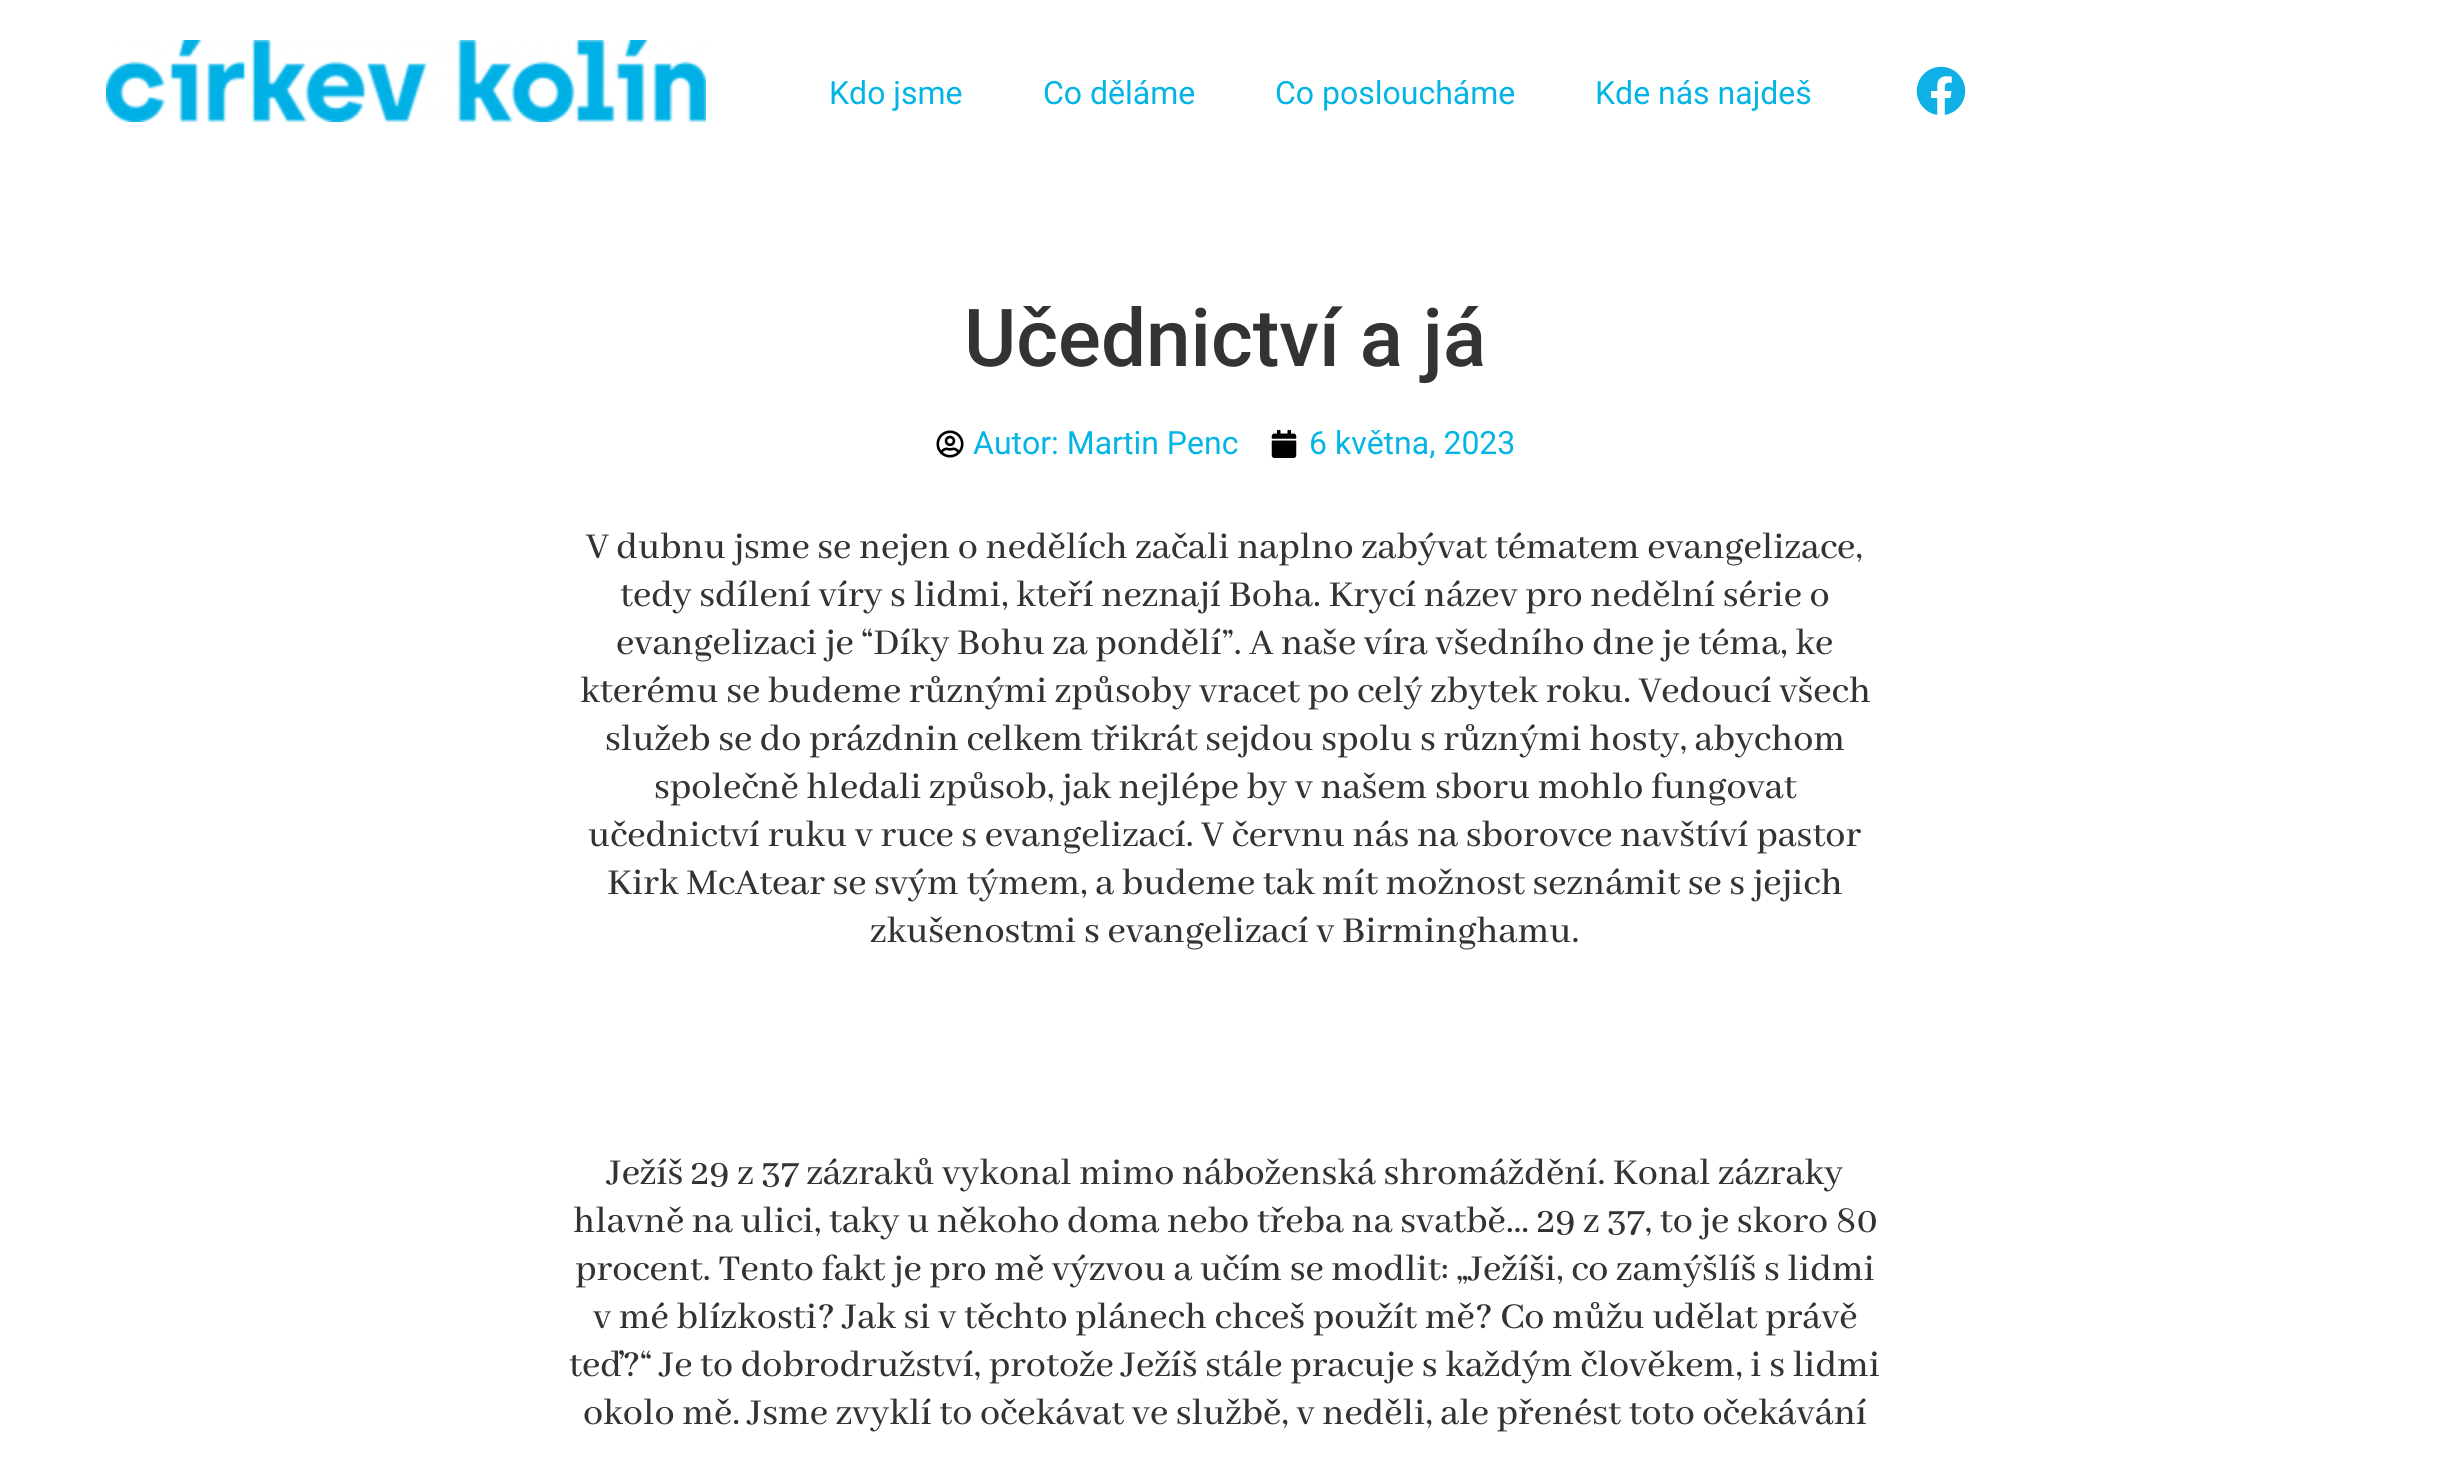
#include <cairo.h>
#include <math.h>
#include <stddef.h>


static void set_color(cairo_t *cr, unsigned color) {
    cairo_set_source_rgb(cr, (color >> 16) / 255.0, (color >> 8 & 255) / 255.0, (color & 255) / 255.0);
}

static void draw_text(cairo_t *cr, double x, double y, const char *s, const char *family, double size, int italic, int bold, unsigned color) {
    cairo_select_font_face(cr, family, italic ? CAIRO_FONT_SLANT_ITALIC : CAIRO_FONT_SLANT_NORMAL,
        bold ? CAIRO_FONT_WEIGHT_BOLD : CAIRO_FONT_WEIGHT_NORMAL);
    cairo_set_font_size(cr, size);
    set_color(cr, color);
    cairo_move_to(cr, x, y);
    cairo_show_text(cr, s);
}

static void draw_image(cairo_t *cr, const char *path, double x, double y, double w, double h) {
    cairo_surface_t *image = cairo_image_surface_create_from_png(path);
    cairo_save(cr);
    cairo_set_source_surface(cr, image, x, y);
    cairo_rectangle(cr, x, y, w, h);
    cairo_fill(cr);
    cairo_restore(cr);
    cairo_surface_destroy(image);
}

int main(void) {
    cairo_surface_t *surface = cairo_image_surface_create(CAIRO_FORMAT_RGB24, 2449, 1462);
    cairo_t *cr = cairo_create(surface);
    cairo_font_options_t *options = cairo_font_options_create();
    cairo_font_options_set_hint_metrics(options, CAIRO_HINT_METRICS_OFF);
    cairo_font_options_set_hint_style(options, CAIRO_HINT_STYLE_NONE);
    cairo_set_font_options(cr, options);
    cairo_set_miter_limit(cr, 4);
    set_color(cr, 0xFFFFFF);
    cairo_paint(cr);
    draw_image(cr, "assets/img1.png", 106, 40, 600, 82);
    draw_text(cr, 829, 104, "Kdo jsme", "Roboto", 32, 0, 0, 0x04B4E4);
    draw_text(cr, 1043, 104, "Co děláme", "Roboto", 32, 0, 0, 0x04B4E4);
    draw_text(cr, 1275, 104, "Co posloucháme", "Roboto", 32, 0, 0, 0x04B4E4);
    draw_text(cr, 1595, 104, "Kde nás najdeš", "Roboto", 32, 0, 0, 0x04B4E4);
    draw_image(cr, "assets/img2.png", 1916, 66, 50, 49);
    draw_text(cr, 964, 366, "Učednictví a já", "Roboto Medium", 80, 0, 0, 0x333333);
    draw_image(cr, "assets/img3.png", 936, 430, 28, 28);
    draw_text(cr, 973, 454, "Autor: Martin Penc", "Roboto", 32, 0, 0, 0x04B4E4);
    draw_image(cr, "assets/img4.png", 1271, 430, 26, 28);
    draw_text(cr, 1309, 454, "6 května, 2023", "Roboto", 32, 0, 0, 0x04B4E4);
    draw_text(cr, 586, 558, "V dubnu jsme se nejen o nedělích začali naplno zabývat tématem evangelizace,", "Abhaya Libre Medium Medium", 40, 0, 0, 0x333333);
    draw_text(cr, 620, 606, "tedy sdílení víry s lidmi, kteří neznají Boha. Krycí název pro nedělní série o", "Abhaya Libre Medium Medium", 40, 0, 0, 0x333333);
    draw_text(cr, 616, 654, "evangelizaci je “Díky Bohu za pondělí”. A naše víra všedního dne je téma, ke", "Abhaya Libre Medium Medium", 40, 0, 0, 0x333333);
    draw_text(cr, 580, 702, "kterému se budeme různými způsoby vracet po celý zbytek roku. Vedoucí všech", "Abhaya Libre Medium Medium", 40, 0, 0, 0x333333);
    draw_text(cr, 605, 750, "služeb se do prázdnin celkem třikrát sejdou spolu s různými hosty, abychom", "Abhaya Libre Medium Medium", 40, 0, 0, 0x333333);
    draw_text(cr, 654, 798, "společně hledali způsob, jak nejlépe by v našem sboru mohlo fungovat", "Abhaya Libre Medium Medium", 40, 0, 0, 0x333333);
    draw_text(cr, 588, 846, "učednictví ruku v ruce s evangelizací. V červnu nás na sborovce navštíví pastor", "Abhaya Libre Medium Medium", 40, 0, 0, 0x333333);
    draw_text(cr, 607, 894, "Kirk McAtear se svým týmem, a budeme tak mít možnost seznámit se s jejich", "Abhaya Libre Medium Medium", 40, 0, 0, 0x333333);
    draw_text(cr, 870, 942, "zkušenostmi s evangelizací v Birminghamu.", "Abhaya Libre Medium Medium", 40, 0, 0, 0x333333);
    draw_text(cr, 607, 1184, "Ježíš 29 z 37 zázraků vykonal mimo náboženská shromáždění. Konal zázraky", "Abhaya Libre Medium Medium", 40, 0, 0, 0x333333);
    draw_text(cr, 573, 1232, "hlavně na ulici, taky u někoho doma nebo třeba na svatbě… 29 z 37, to je skoro 80", "Abhaya Libre Medium Medium", 40, 0, 0, 0x333333);
    draw_text(cr, 575, 1280, "procent. Tento fakt je pro mě výzvou a učím se modlit: „Ježíši, co zamýšlíš s lidmi", "Abhaya Libre Medium Medium", 40, 0, 0, 0x333333);
    draw_text(cr, 593, 1328, "v mé blízkosti? Jak si v těchto plánech chceš použít mě? Co můžu udělat právě", "Abhaya Libre Medium Medium", 40, 0, 0, 0x333333);
    draw_text(cr, 569, 1376, "teď?“ Je to dobrodružství, protože Ježíš stále pracuje s každým člověkem, i s lidmi", "Abhaya Libre Medium Medium", 40, 0, 0, 0x333333);
    draw_text(cr, 583, 1424, "okolo mě. Jsme zvyklí to očekávat ve službě, v neděli, ale přenést toto očekávání", "Abhaya Libre Medium Medium", 40, 0, 0, 0x333333);
    cairo_surface_write_to_png(surface, "output.png");
    cairo_font_options_destroy(options);
    cairo_destroy(cr);
    cairo_surface_destroy(surface);
    return 0;
}
